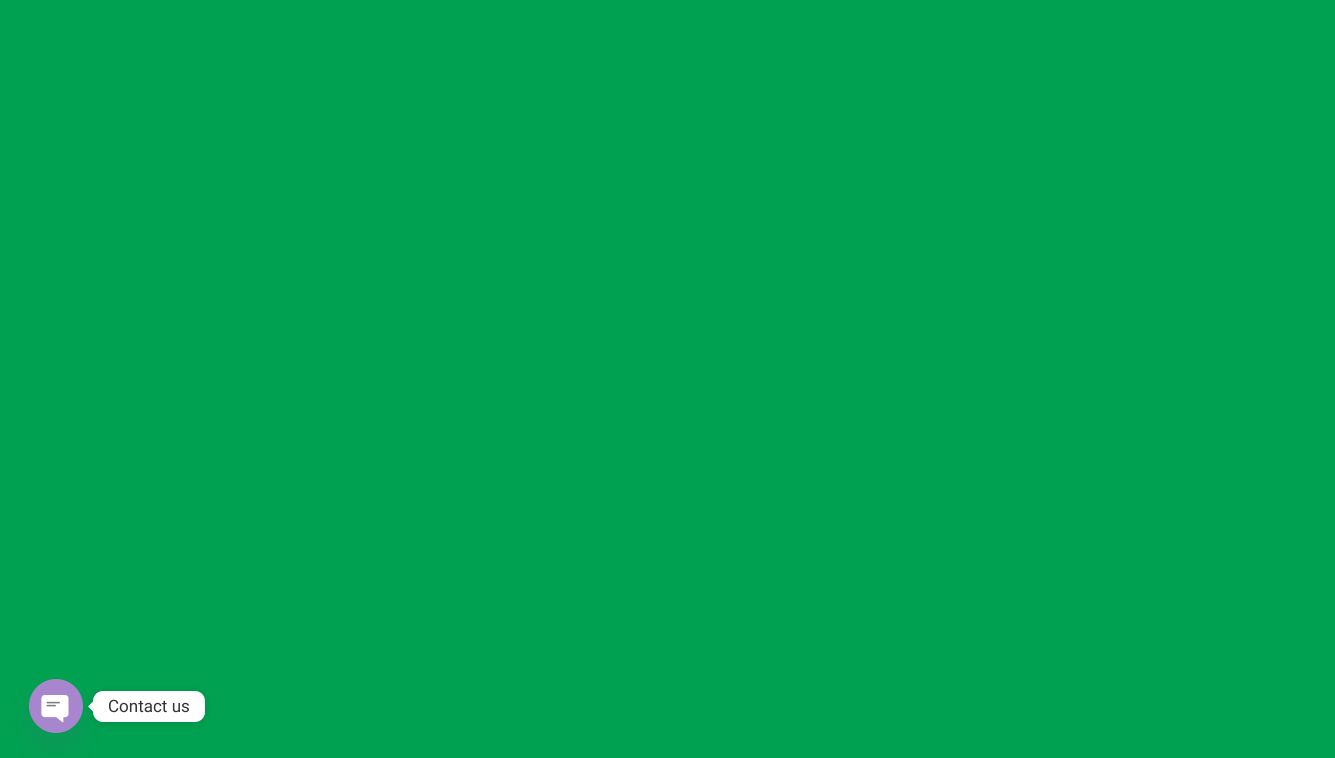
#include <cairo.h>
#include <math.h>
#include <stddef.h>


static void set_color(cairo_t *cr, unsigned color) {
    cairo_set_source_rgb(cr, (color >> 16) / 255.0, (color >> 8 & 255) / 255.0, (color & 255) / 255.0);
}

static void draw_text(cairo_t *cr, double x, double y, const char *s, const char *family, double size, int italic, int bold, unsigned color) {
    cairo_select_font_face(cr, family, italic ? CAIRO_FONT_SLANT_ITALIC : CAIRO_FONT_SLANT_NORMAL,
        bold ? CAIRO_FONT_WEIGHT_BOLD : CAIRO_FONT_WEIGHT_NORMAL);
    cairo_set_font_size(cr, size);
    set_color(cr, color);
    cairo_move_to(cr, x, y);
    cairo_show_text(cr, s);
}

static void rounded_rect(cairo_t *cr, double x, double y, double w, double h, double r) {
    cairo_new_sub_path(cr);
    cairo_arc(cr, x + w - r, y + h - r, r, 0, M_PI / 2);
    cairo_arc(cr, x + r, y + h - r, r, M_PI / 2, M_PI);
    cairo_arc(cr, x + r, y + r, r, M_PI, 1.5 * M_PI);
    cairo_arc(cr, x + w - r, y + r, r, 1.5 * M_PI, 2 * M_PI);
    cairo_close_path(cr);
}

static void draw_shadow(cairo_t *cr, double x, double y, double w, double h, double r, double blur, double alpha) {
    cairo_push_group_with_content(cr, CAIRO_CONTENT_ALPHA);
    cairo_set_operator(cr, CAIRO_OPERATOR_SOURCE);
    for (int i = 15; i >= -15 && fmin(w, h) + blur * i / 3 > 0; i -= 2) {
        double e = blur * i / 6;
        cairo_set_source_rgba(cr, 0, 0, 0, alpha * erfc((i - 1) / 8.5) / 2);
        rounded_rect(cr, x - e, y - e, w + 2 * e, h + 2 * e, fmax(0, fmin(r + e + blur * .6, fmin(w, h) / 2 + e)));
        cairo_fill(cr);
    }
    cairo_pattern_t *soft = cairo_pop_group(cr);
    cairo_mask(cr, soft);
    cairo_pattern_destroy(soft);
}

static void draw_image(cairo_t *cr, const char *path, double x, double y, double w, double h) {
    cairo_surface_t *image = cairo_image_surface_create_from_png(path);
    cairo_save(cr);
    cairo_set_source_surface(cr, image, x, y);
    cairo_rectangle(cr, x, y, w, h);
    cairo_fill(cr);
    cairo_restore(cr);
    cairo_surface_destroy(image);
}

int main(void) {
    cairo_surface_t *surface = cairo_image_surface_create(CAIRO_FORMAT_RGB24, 1335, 758);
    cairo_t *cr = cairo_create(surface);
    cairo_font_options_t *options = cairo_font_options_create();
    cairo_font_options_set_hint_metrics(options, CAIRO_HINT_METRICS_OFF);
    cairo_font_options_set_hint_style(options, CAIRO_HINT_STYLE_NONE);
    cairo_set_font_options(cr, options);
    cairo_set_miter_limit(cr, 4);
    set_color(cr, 0x00A151);
    cairo_paint(cr);
    set_color(cr, 0x000000);
    draw_shadow(cr, 93, 692, 112, 31, 10, 4, 0.15);
    set_color(cr, 0xFFFFFF);
    rounded_rect(cr, 93, 691, 112, 31, 10);
    cairo_fill(cr);
    cairo_new_path(cr);
    cairo_move_to(cr, 93, 701.5);
    cairo_line_to(cr, 93, 711.5);
    cairo_line_to(cr, 88, 706.5);
    cairo_close_path(cr);
    cairo_fill(cr);
    set_color(cr, 0x49687E);
    draw_shadow(cr, 29, 695, 54, 54, 27, 12, 0.16);
    draw_image(cr, "assets/img1.png", 29, 679, 54, 54);
    draw_text(cr, 108, 712, "Contact us", "Roboto", 17, 0, 0, 0x333333);
    cairo_surface_write_to_png(surface, "output.png");
    cairo_font_options_destroy(options);
    cairo_destroy(cr);
    cairo_surface_destroy(surface);
    return 0;
}
